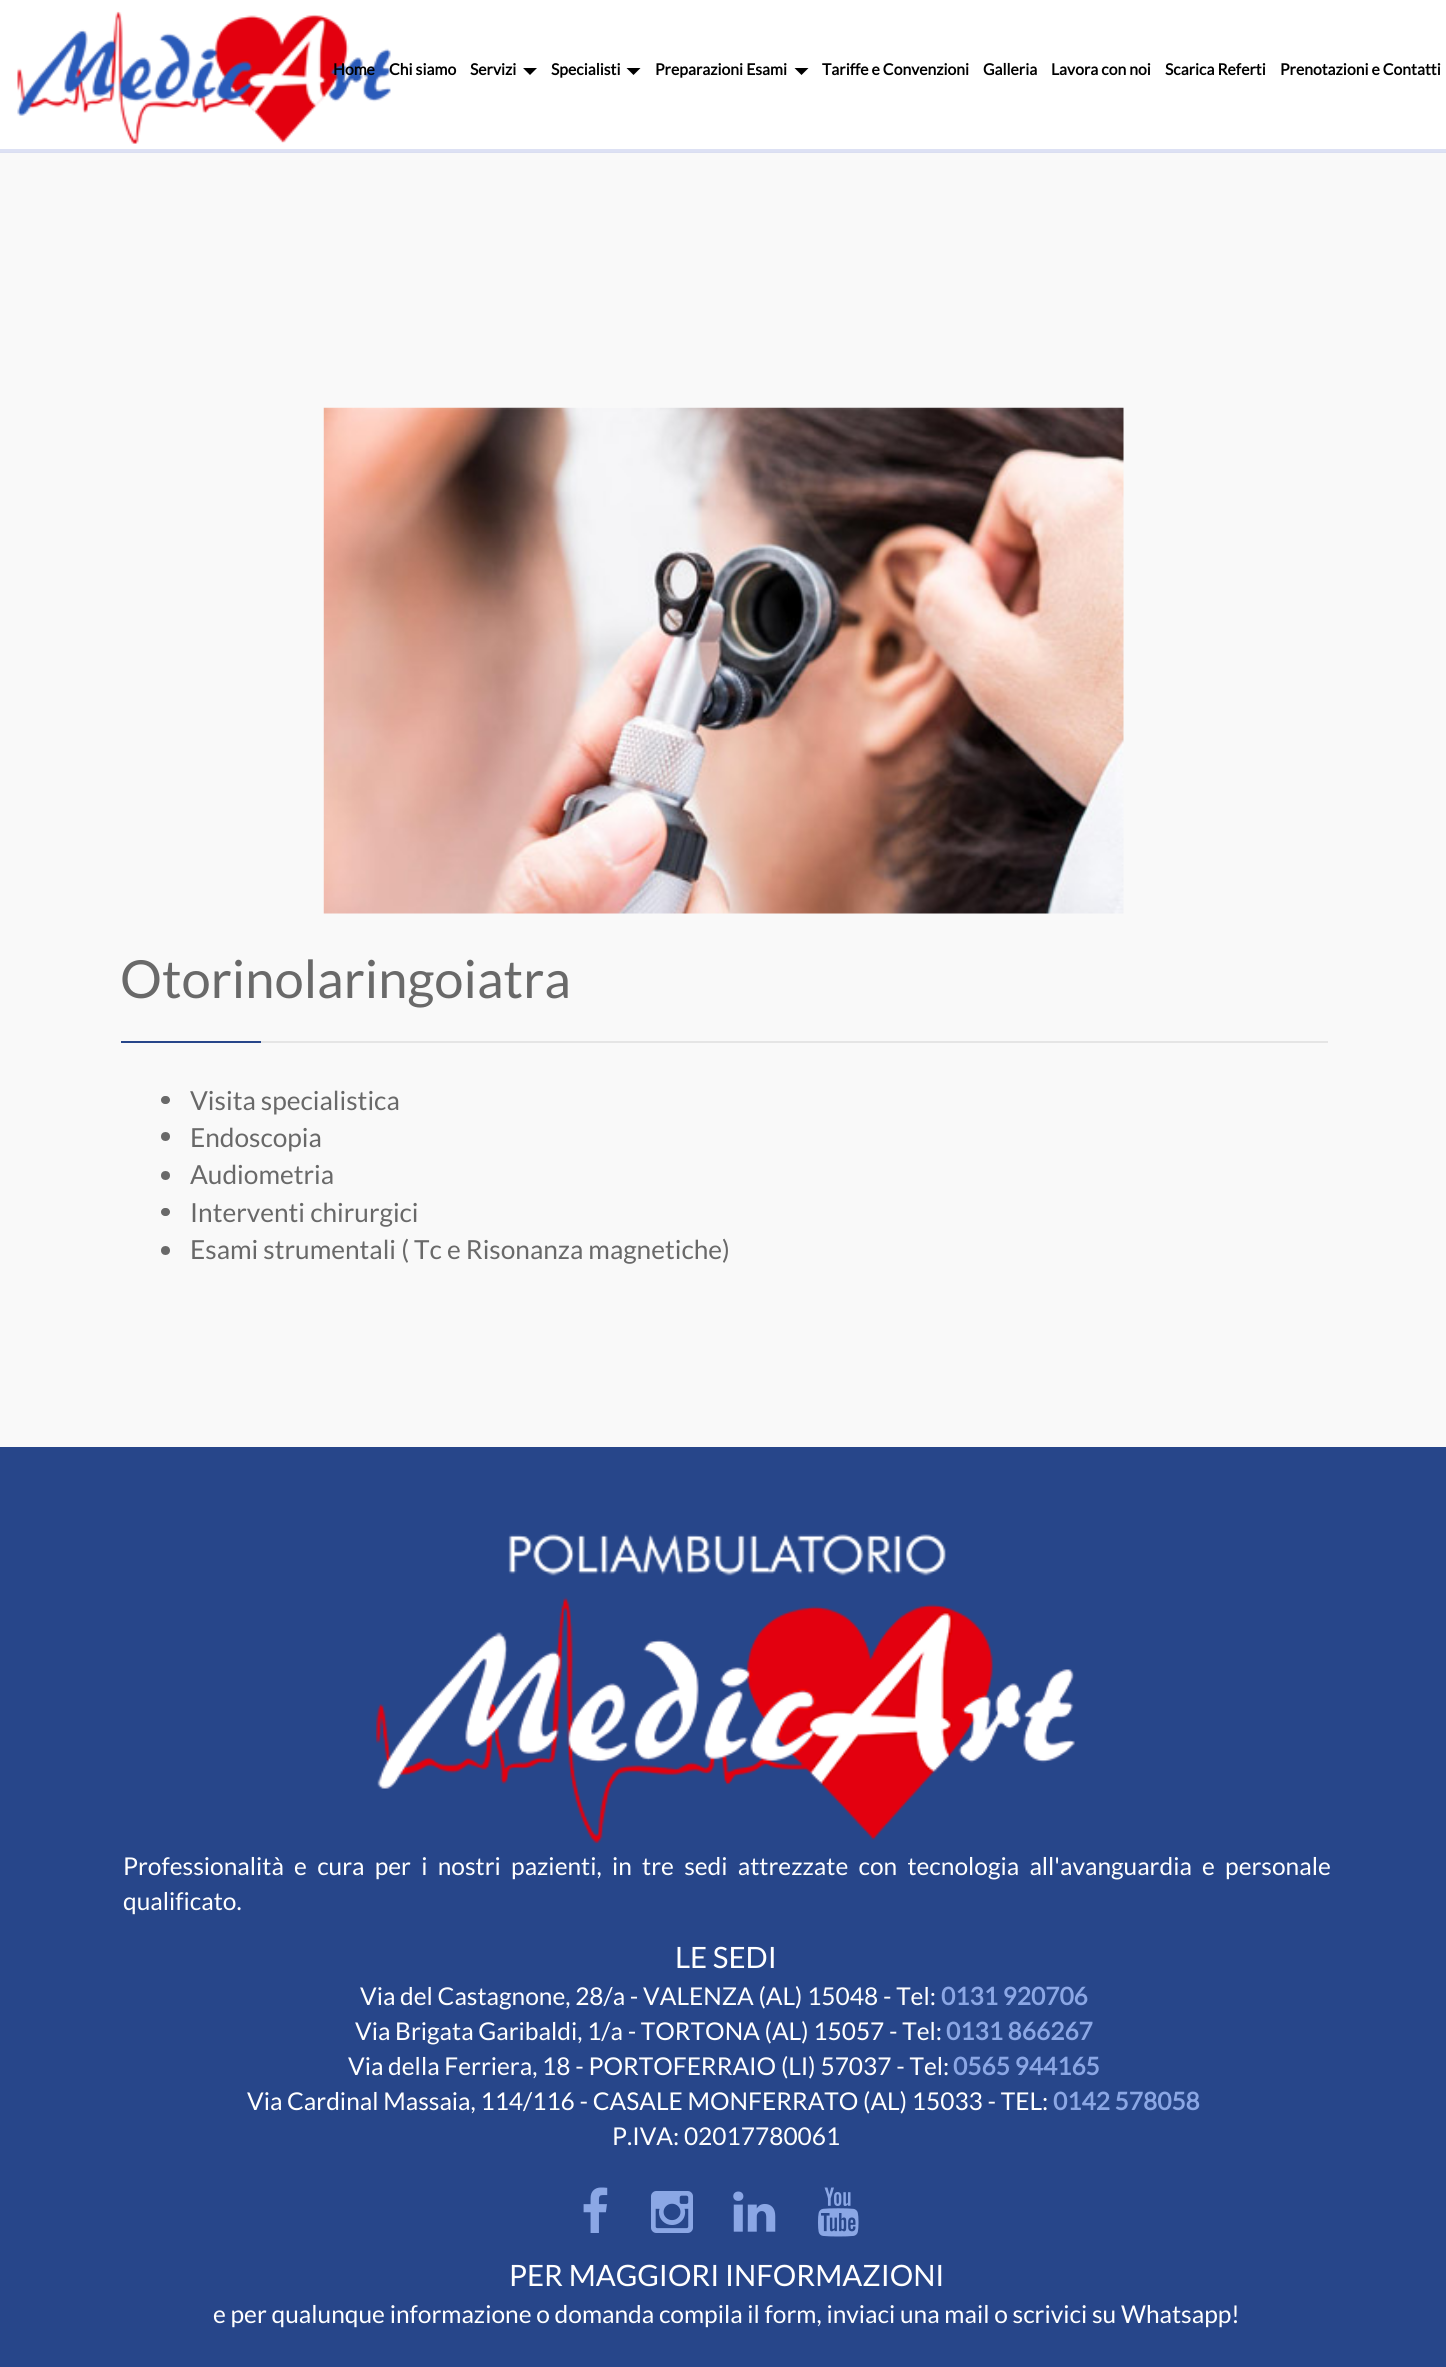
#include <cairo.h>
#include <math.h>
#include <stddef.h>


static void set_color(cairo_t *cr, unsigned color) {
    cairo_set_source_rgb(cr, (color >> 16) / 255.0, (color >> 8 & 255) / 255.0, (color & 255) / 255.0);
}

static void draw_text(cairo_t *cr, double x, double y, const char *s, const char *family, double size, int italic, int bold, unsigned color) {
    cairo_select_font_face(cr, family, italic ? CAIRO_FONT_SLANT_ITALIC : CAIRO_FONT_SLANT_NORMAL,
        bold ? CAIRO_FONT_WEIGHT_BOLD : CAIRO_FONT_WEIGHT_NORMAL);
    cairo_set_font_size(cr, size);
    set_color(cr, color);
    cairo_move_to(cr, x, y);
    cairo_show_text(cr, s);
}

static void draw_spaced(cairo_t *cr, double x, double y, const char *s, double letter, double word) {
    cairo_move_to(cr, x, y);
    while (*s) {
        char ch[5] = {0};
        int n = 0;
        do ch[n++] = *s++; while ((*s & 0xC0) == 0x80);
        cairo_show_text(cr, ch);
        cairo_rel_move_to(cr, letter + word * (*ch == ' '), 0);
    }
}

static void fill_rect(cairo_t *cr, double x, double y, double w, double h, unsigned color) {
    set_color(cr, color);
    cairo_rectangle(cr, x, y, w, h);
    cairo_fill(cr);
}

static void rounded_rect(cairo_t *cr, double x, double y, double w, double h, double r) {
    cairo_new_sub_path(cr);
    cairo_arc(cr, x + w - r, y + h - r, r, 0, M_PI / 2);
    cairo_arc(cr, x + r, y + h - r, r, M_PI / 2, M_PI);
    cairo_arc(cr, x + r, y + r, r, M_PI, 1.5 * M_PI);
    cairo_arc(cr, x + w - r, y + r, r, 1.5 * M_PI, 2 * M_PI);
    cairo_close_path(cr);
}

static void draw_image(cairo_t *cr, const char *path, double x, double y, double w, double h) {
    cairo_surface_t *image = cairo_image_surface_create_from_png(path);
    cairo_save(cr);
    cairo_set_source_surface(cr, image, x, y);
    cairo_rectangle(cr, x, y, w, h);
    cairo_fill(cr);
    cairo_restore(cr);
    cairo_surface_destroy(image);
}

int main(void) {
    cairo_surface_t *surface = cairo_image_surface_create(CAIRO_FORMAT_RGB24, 1446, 2367);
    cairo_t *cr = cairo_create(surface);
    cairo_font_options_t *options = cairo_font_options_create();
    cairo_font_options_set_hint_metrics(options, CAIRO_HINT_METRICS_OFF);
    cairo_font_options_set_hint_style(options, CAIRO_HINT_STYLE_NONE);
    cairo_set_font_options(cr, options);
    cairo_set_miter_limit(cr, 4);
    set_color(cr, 0xF9F9F9);
    cairo_paint(cr);
    fill_rect(cr, 0, 152, 1446, 1, 0xDADEF1);
    fill_rect(cr, 0, 0, 1446, 149, 0xFFFFFF);
    fill_rect(cr, 0, 149, 1446, 3, 0xDDE1F4);
    draw_image(cr, "assets/img1.png", 17, 11, 374, 133);
    draw_text(cr, 333, 75, "Home", "Lato", 15.75, 0, 1, 0x000000);
    draw_text(cr, 389, 75, "Chi siamo", "Lato", 15.75, 0, 1, 0x000000);
    draw_text(cr, 470, 75, "Servizi", "Lato", 15.75, 0, 1, 0x000000);
    cairo_new_path(cr);
    cairo_move_to(cr, 523, 68);
    cairo_line_to(cr, 537, 68);
    cairo_line_to(cr, 530, 75);
    cairo_close_path(cr);
    cairo_fill(cr);
    draw_text(cr, 551, 75, "Specialisti", "Lato", 15.75, 0, 1, 0x000000);
    cairo_new_path(cr);
    cairo_move_to(cr, 626.5, 68);
    cairo_line_to(cr, 640.5, 68);
    cairo_line_to(cr, 633.5, 75);
    cairo_close_path(cr);
    cairo_fill(cr);
    draw_text(cr, 655, 75, "Preparazioni Esami", "Lato", 15.75, 0, 1, 0x000000);
    cairo_new_path(cr);
    cairo_move_to(cr, 794.5, 68);
    cairo_line_to(cr, 808.5, 68);
    cairo_line_to(cr, 801.5, 75);
    cairo_close_path(cr);
    cairo_fill(cr);
    draw_text(cr, 822, 75, "Tariffe e Convenzioni", "Lato", 15.75, 0, 1, 0x000000);
    draw_text(cr, 983, 75, "Galleria", "Lato", 15.75, 0, 1, 0x000000);
    draw_text(cr, 1051, 75, "Lavora con noi", "Lato", 15.75, 0, 1, 0x000000);
    draw_text(cr, 1165, 75, "Scarica Referti", "Lato", 15.75, 0, 1, 0x000000);
    draw_text(cr, 1280, 75, "Prenotazioni e Contatti", "Lato", 15.75, 0, 1, 0x000000);
    draw_image(cr, "assets/img2.png", 323, 407, 801, 507);
    draw_text(cr, 120, 998, "Otorinolaringoiatra", "Lato", 52.5, 0, 0, 0x696969);
    fill_rect(cr, 261, 1041, 1067, 2, 0xE5E5E5);
    fill_rect(cr, 121, 1041, 140, 2, 0x27468A);
    set_color(cr, 0x696969);
    rounded_rect(cr, 161, 1096, 9, 8, 4);
    cairo_fill(cr);
    draw_text(cr, 190, 1110, "Visita specialistica", "Lato", 26.25, 0, 0, 0x696969);
    cairo_new_path(cr);
    cairo_arc(cr, 165.5, 1136.5, 4.5, 0, 2 * M_PI);
    cairo_fill(cr);
    draw_text(cr, 190, 1147, "Endoscopia", "Lato", 26.25, 0, 0, 0x696969);
    cairo_new_path(cr);
    cairo_arc(cr, 165.5, 1175.5, 4.5, 0, 2 * M_PI);
    cairo_fill(cr);
    draw_text(cr, 190, 1184, "Audiometria", "Lato", 26.25, 0, 0, 0x696969);
    rounded_rect(cr, 161, 1208, 9, 8, 4);
    cairo_fill(cr);
    draw_text(cr, 190, 1222, "Interventi chirurgici", "Lato", 26.25, 0, 0, 0x696969);
    cairo_new_path(cr);
    cairo_arc(cr, 165.5, 1250.5, 4.5, 0, 2 * M_PI);
    cairo_fill(cr);
    draw_text(cr, 190, 1259, "Esami strumentali ( Tc e Risonanza magnetiche)", "Lato", 26.25, 0, 0, 0x696969);
    fill_rect(cr, 0, 1447, 1446, 920, 0x27468A);
    draw_image(cr, "assets/img3.png", 376, 1534, 699, 310);
    cairo_set_font_size(cr, 24.5);
    set_color(cr, 0xFFFFFF);
    draw_spaced(cr, 123, 1875, "Professionalità e cura per i nostri pazienti, in tre sedi attrezzate con tecnologia all'avanguardia e personale", 0, 5.5);
    draw_text(cr, 123, 1910, "qualificato.", "Lato", 24.5, 0, 0, 0xFFFFFF);
    draw_text(cr, 675, 1968, "LE SEDI", "Lato", 29.4, 0, 0, 0xFFFFFF);
    draw_text(cr, 360, 2005, "Via del Castagnone, 28/a - VALENZA (AL) 15048 - Tel:", "Lato", 24.5, 0, 0, 0xFFFFFF);
    draw_text(cr, 941, 2005, "0131 920706", "Lato", 24.5, 0, 1, 0x8BA7E5);
    draw_text(cr, 355, 2040, "Via Brigata Garibaldi, 1/a - TORTONA (AL) 15057 - Tel:", "Lato", 24.5, 0, 0, 0xFFFFFF);
    draw_text(cr, 946, 2040, "0131 866267", "Lato", 24.5, 0, 1, 0x8BA7E5);
    draw_text(cr, 348, 2075, "Via della Ferriera, 18 - PORTOFERRAIO (LI) 57037 - Tel:", "Lato", 24.5, 0, 0, 0xFFFFFF);
    draw_text(cr, 953, 2075, "0565 944165", "Lato", 24.5, 0, 1, 0x8BA7E5);
    draw_text(cr, 247, 2110, "Via Cardinal Massaia, 114/116 - CASALE MONFERRATO (AL) 15033 - TEL:", "Lato", 24.5, 0, 0, 0xFFFFFF);
    draw_text(cr, 1053, 2110, "0142 578058", "Lato", 24.5, 0, 1, 0x8BA7E5);
    draw_text(cr, 612, 2145, "P.IVA: 02017780061", "Lato", 24.5, 0, 0, 0xFFFFFF);
    draw_image(cr, "assets/img4.png", 583, 2187, 25, 46);
    draw_image(cr, "assets/img5.png", 651, 2191, 42, 42);
    draw_image(cr, "assets/img6.png", 733, 2191, 43, 41);
    draw_image(cr, "assets/img7.png", 818, 2187, 41, 50);
    draw_text(cr, 509, 2286, "PER MAGGIORI INFORMAZIONI", "Lato", 29.4, 0, 0, 0xFFFFFF);
    draw_text(cr, 213, 2323, "e per qualunque informazione o domanda compila il form, inviaci una mail o scrivici su Whatsapp!", "Lato", 24.5, 0, 0, 0xFFFFFF);
    cairo_surface_write_to_png(surface, "output.png");
    cairo_font_options_destroy(options);
    cairo_destroy(cr);
    cairo_surface_destroy(surface);
    return 0;
}
